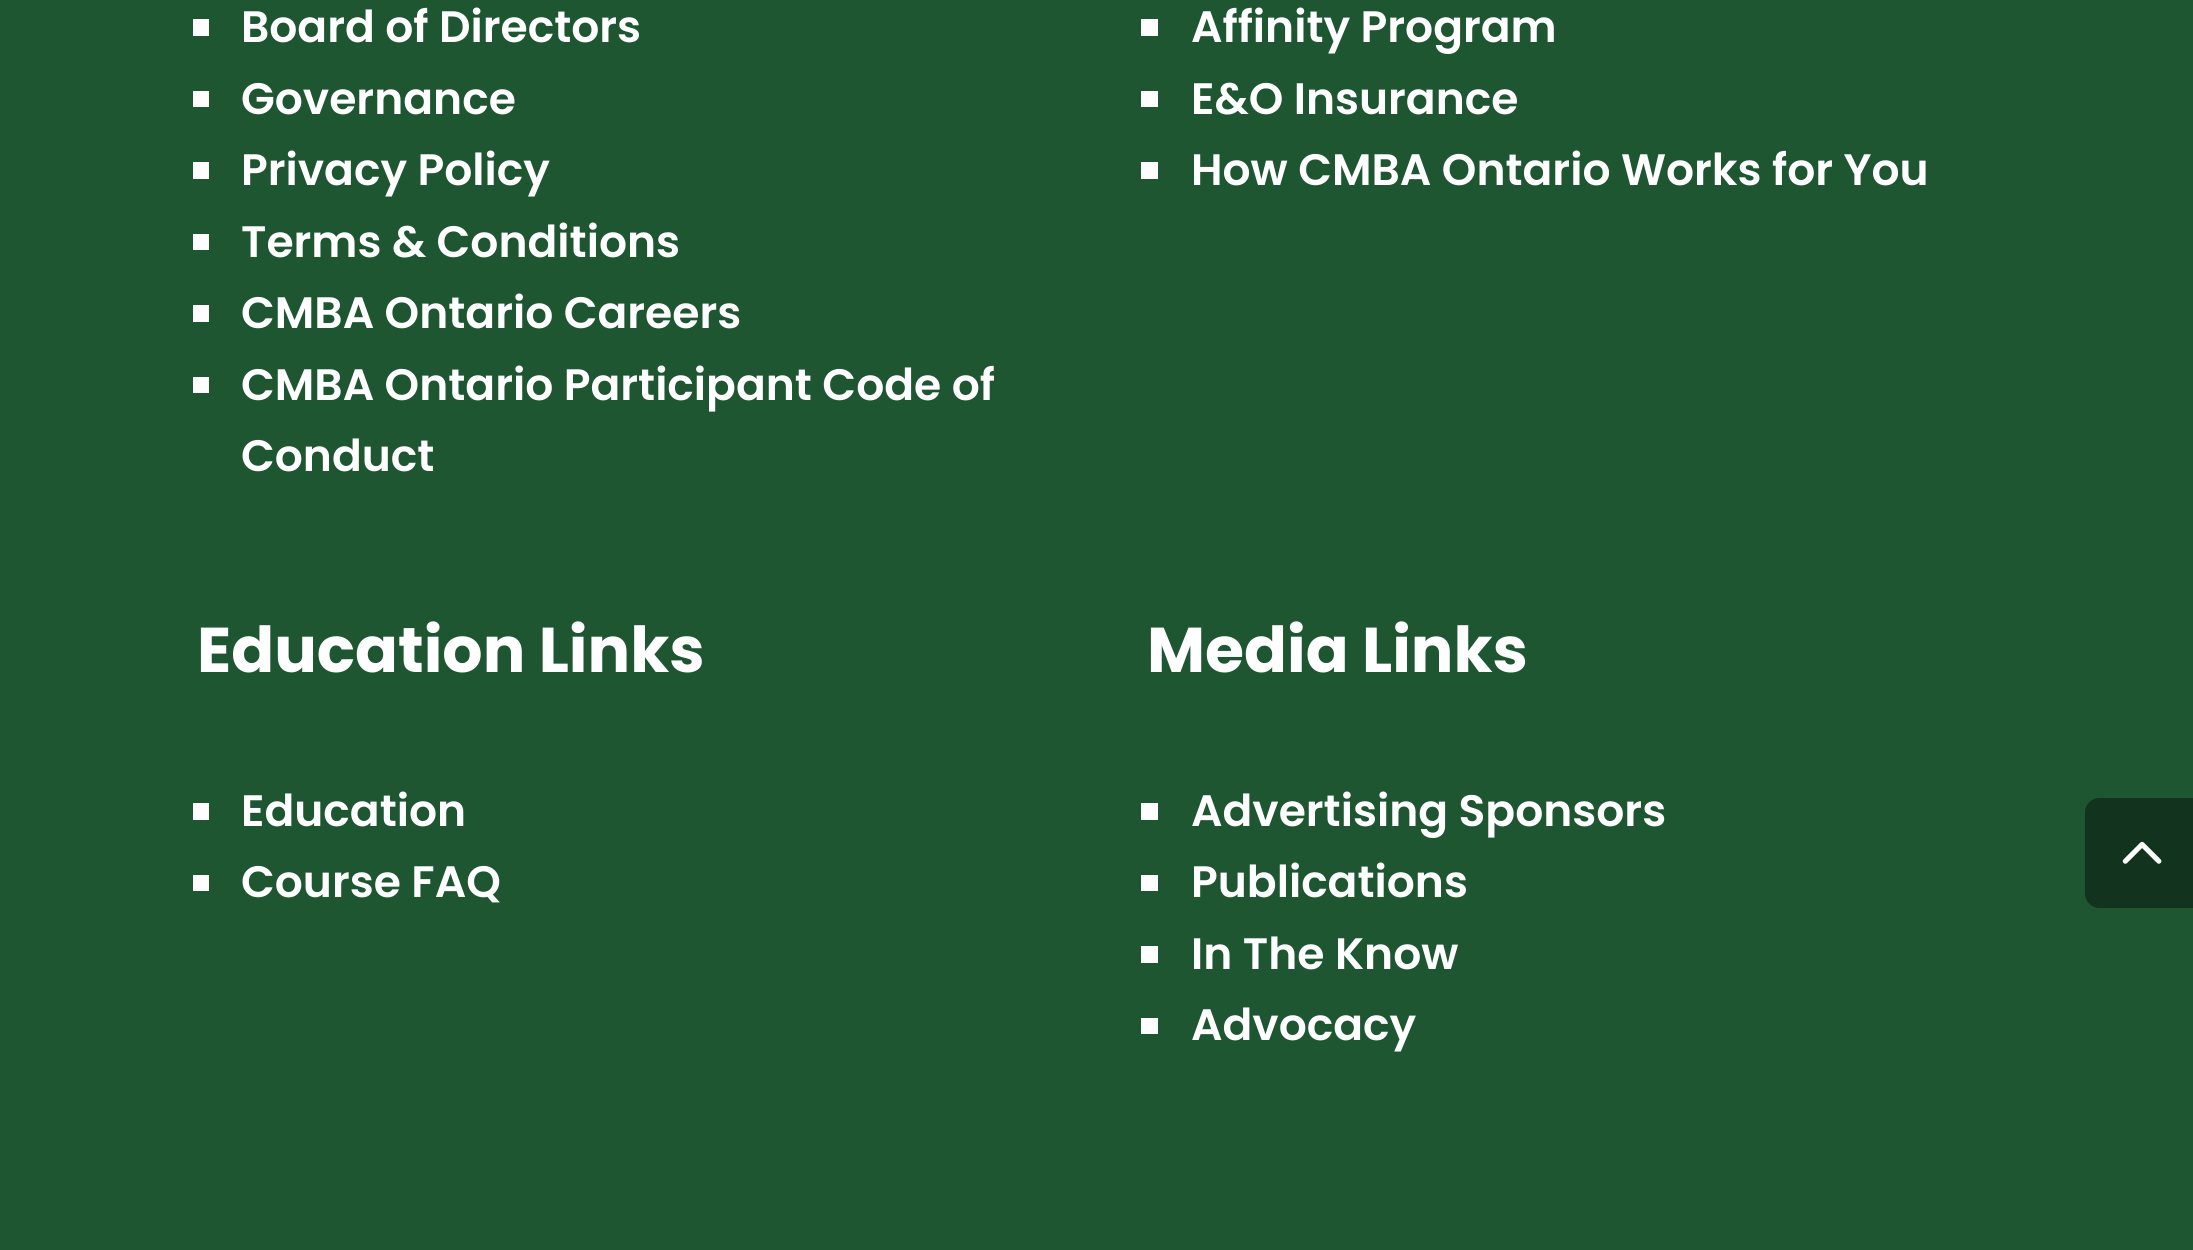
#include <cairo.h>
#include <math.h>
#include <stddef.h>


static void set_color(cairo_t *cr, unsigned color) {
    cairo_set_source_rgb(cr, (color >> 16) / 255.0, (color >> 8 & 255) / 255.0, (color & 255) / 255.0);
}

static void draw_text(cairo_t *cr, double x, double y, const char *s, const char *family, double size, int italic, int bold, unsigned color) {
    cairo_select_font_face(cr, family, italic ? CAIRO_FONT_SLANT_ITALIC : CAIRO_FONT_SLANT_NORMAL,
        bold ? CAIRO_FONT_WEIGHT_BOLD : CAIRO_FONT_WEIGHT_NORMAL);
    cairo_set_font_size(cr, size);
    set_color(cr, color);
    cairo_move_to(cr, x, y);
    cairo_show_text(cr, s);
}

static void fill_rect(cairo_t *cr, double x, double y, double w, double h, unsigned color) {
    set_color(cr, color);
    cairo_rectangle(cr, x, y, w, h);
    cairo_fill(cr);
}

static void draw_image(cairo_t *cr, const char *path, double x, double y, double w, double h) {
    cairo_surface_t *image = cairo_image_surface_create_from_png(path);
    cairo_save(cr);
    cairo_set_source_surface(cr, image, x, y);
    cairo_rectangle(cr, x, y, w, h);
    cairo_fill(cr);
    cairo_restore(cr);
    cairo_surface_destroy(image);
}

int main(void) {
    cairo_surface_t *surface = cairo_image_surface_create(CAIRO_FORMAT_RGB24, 2193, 1250);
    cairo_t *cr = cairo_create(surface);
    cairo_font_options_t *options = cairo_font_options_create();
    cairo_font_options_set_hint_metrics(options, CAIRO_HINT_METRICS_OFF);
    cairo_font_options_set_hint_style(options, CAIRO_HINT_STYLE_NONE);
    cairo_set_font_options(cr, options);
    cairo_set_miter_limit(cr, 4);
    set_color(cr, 0x1E5632);
    cairo_paint(cr);
    fill_rect(cr, 193, 19, 16, 17, 0xFFFFFF);
    draw_text(cr, 241, 42, "Board of Directors", "Poppins SemiBold", 44, 0, 0, 0xFFFFFF);
    fill_rect(cr, 193, 91, 16, 16, 0xFFFFFF);
    draw_text(cr, 241, 114, "Governance", "Poppins SemiBold", 44, 0, 0, 0xFFFFFF);
    fill_rect(cr, 193, 162, 16, 17, 0xFFFFFF);
    draw_text(cr, 241, 185, "Privacy Policy", "Poppins SemiBold", 44, 0, 0, 0xFFFFFF);
    fill_rect(cr, 193, 234, 16, 16, 0xFFFFFF);
    draw_text(cr, 241, 257, "Terms & Conditions", "Poppins SemiBold", 44, 0, 0, 0xFFFFFF);
    fill_rect(cr, 193, 305, 16, 17, 0xFFFFFF);
    draw_text(cr, 241, 328, "CMBA Ontario Careers", "Poppins SemiBold", 44, 0, 0, 0xFFFFFF);
    fill_rect(cr, 193, 377, 16, 16, 0xFFFFFF);
    draw_text(cr, 241, 400, "CMBA Ontario Participant Code of", "Poppins SemiBold", 44, 0, 0, 0xFFFFFF);
    draw_text(cr, 241, 471, "Conduct", "Poppins SemiBold", 44, 0, 0, 0xFFFFFF);
    fill_rect(cr, 1141, 19, 17, 17, 0xFFFFFF);
    draw_text(cr, 1191, 42, "Affinity Program", "Poppins SemiBold", 44, 0, 0, 0xFFFFFF);
    fill_rect(cr, 1141, 91, 17, 16, 0xFFFFFF);
    draw_text(cr, 1191, 114, "E&O Insurance", "Poppins SemiBold", 44, 0, 0, 0xFFFFFF);
    fill_rect(cr, 1141, 162, 17, 17, 0xFFFFFF);
    draw_text(cr, 1191, 185, "How CMBA Ontario Works for You", "Poppins SemiBold", 44, 0, 0, 0xFFFFFF);
    draw_text(cr, 197, 672, "Education Links", "Poppins", 63.25, 0, 1, 0xFFFFFF);
    fill_rect(cr, 193, 803, 16, 17, 0xFFFFFF);
    draw_text(cr, 241, 826, "Education", "Poppins SemiBold", 44, 0, 0, 0xFFFFFF);
    fill_rect(cr, 193, 875, 16, 16, 0xFFFFFF);
    draw_text(cr, 241, 897, "Course FAQ", "Poppins SemiBold", 44, 0, 0, 0xFFFFFF);
    draw_text(cr, 1147, 672, "Media Links", "Poppins", 63.25, 0, 1, 0xFFFFFF);
    fill_rect(cr, 1141, 803, 17, 17, 0xFFFFFF);
    draw_text(cr, 1191, 826, "Advertising Sponsors", "Poppins SemiBold", 44, 0, 0, 0xFFFFFF);
    fill_rect(cr, 1141, 875, 17, 16, 0xFFFFFF);
    draw_text(cr, 1191, 897, "Publications", "Poppins SemiBold", 44, 0, 0, 0xFFFFFF);
    fill_rect(cr, 1141, 946, 17, 17, 0xFFFFFF);
    draw_text(cr, 1191, 969, "In The Know", "Poppins SemiBold", 44, 0, 0, 0xFFFFFF);
    fill_rect(cr, 1141, 1018, 17, 16, 0xFFFFFF);
    draw_text(cr, 1191, 1040, "Advocacy", "Poppins SemiBold", 44, 0, 0, 0xFFFFFF);
    set_color(cr, 0x12341E);
    cairo_new_path(cr);
    cairo_move_to(cr, 2099, 798);
    cairo_line_to(cr, 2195, 798);
    cairo_line_to(cr, 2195, 908);
    cairo_line_to(cr, 2099, 908);
    cairo_curve_to(cr, 2091.5, 908, 2085, 901.5, 2085, 894);
    cairo_line_to(cr, 2085, 812);
    cairo_curve_to(cr, 2085, 804.5, 2091.5, 798, 2099, 798);
    cairo_close_path(cr);
    cairo_fill(cr);
    draw_image(cr, "assets/img1.png", 2122, 841, 40, 23);
    cairo_surface_write_to_png(surface, "output.png");
    cairo_font_options_destroy(options);
    cairo_destroy(cr);
    cairo_surface_destroy(surface);
    return 0;
}
